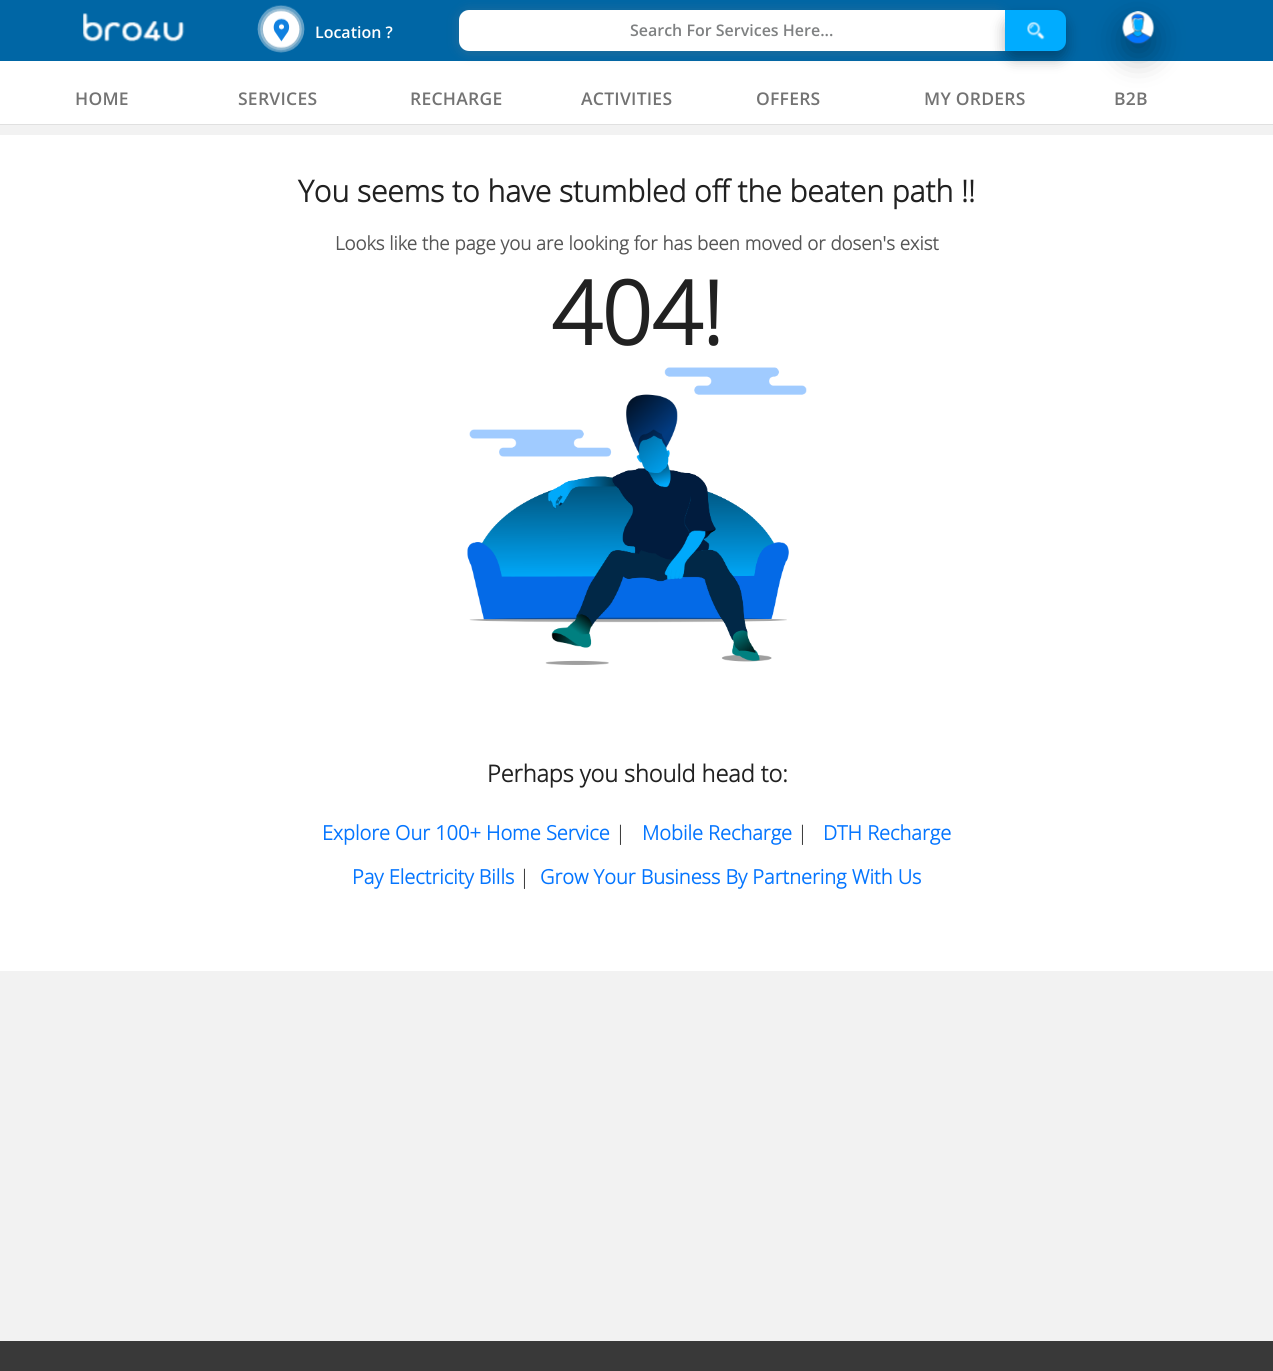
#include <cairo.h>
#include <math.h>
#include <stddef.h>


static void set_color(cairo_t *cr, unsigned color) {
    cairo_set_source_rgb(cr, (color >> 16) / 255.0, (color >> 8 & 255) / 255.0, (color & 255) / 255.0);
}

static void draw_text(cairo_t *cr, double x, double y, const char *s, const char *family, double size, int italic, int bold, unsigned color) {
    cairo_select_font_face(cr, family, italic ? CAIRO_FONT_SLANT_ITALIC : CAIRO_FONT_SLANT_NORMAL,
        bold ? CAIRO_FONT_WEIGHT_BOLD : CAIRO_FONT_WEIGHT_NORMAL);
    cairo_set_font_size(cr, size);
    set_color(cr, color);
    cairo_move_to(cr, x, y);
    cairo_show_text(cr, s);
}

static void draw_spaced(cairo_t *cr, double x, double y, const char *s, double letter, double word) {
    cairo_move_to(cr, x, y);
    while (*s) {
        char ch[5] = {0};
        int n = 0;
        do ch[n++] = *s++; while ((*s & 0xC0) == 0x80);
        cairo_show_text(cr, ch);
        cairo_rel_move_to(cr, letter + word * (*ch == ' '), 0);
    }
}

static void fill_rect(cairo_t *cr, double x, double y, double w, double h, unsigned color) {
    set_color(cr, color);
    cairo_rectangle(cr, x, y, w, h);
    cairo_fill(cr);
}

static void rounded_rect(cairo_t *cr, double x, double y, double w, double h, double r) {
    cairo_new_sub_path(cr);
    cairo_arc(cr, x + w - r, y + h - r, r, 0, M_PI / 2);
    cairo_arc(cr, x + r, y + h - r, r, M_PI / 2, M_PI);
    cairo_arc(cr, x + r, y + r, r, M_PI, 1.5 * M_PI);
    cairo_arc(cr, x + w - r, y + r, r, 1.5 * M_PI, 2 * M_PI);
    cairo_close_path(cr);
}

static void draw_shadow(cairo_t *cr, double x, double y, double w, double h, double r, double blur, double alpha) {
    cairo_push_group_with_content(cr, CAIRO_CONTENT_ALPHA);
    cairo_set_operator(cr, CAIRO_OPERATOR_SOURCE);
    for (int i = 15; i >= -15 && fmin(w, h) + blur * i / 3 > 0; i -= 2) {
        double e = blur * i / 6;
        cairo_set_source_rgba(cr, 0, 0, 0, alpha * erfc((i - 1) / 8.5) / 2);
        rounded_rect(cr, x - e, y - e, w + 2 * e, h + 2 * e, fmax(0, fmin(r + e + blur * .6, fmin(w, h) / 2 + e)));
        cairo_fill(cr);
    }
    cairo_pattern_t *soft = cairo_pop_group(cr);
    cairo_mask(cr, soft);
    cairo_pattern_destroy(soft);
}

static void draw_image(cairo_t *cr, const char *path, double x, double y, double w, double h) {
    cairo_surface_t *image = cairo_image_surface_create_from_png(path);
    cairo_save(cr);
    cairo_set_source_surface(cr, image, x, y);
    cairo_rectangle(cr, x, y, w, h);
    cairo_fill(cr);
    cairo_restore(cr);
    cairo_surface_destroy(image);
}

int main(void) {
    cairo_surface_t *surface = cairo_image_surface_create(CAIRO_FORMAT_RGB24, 1273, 1371);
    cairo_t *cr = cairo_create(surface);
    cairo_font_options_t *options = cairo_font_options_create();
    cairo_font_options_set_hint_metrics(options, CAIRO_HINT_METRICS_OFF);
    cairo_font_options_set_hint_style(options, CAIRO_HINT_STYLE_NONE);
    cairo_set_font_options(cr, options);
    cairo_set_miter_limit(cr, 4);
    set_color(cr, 0xF2F2F2);
    cairo_paint(cr);
    fill_rect(cr, 0, 0, 1273, 61, 0x0066A5);
    draw_image(cr, "assets/img1.png", 83, 13, 102, 29);
    draw_image(cr, "assets/img2.png", 257, 5, 48, 48);
    draw_text(cr, 315, 38, "Location ?", "Open Sans SemiBold", 16, 0, 0, 0xFFFFFF);
    fill_rect(cr, 0, 61, 1273, 63, 0xFFFFFF);
    set_color(cr, 0x7B7B7B);
    draw_shadow(cr, 459, 11, 546, 42, 10, 6, 0.3);
    set_color(cr, 0xFFFFFF);
    cairo_new_path(cr);
    cairo_move_to(cr, 469, 10);
    cairo_line_to(cr, 1005, 10);
    cairo_line_to(cr, 1005, 51);
    cairo_line_to(cr, 469, 51);
    cairo_curve_to(cr, 463.5, 51, 459, 46.5, 459, 41);
    cairo_line_to(cr, 459, 20);
    cairo_curve_to(cr, 459, 14.5, 463.5, 10, 469, 10);
    cairo_close_path(cr);
    cairo_fill(cr);
    draw_text(cr, 630, 36, "Search For Services Here...", "Open Sans SemiBold", 16, 0, 0, 0x7F8182);
    set_color(cr, 0x000000);
    draw_shadow(cr, 1005, 18, 61, 41, 10, 7, 0.3);
    set_color(cr, 0x00ACFF);
    cairo_new_path(cr);
    cairo_move_to(cr, 1005, 10);
    cairo_line_to(cr, 1056, 10);
    cairo_curve_to(cr, 1061.5, 10, 1066, 14.5, 1066, 20);
    cairo_line_to(cr, 1066, 41);
    cairo_curve_to(cr, 1066, 46.5, 1061.5, 51, 1056, 51);
    cairo_line_to(cr, 1005, 51);
    cairo_close_path(cr);
    cairo_fill(cr);
    draw_image(cr, "assets/img3.png", 1027, 22, 18, 18);
    set_color(cr, 0x000000);
    draw_shadow(cr, 1123, 24, 31, 32, 15.5, 15, 0.3);
    draw_image(cr, "assets/img4.png", 1122, 11, 33, 33);
    fill_rect(cr, 0, 124, 1273, 1, 0xE0E0E0);
    cairo_set_font_size(cr, 17.5);
    set_color(cr, 0x737373);
    draw_spaced(cr, 75, 105, "HOME", 0.25, 0);
    draw_spaced(cr, 238, 105, "SERVICES", 0.25, 0);
    draw_spaced(cr, 410, 105, "RECHARGE", 0.25, 0);
    draw_spaced(cr, 581, 105, "ACTIVITIES", 0.25, 0);
    draw_spaced(cr, 756, 105, "OFFERS", 0.25, 0);
    draw_spaced(cr, 924, 105, "MY ORDERS", 0.25, 0);
    draw_spaced(cr, 1114, 105, "B2B", 0.25, 0);
    fill_rect(cr, 0, 135, 1273, 836, 0xFFFFFF);
    draw_text(cr, 298, 202, "You seems to have stumbled off the beaten path !!", "Open Sans", 30, 0, 1, 0x212121);
    draw_text(cr, 335, 250, "Looks like the page you are looking for has been moved or dosen's exist", "Open Sans", 18.75, 0, 1, 0x555555);
    draw_text(cr, 551, 345, "404!", "Open Sans", 88, 0, 1, 0x212121);
    draw_image(cr, "assets/img5.png", 467, 367, 340, 298);
    draw_text(cr, 487, 782, "Perhaps you should head to:", "Open Sans", 23.4, 0, 1, 0x212121);
    draw_text(cr, 322, 840, "Explore Our 100+ Home Service", "Open Sans", 20, 0, 1, 0x0475FF);
    draw_text(cr, 615, 840, "|", "Open Sans Light", 20, 0, 0, 0x212121);
    draw_text(cr, 642, 840, "Mobile Recharge", "Open Sans", 20, 0, 1, 0x0475FF);
    draw_text(cr, 797, 840, "|", "Open Sans Light", 20, 0, 0, 0x212121);
    draw_text(cr, 823, 840, "DTH Recharge", "Open Sans", 20, 0, 1, 0x0475FF);
    draw_text(cr, 352, 884, "Pay Electricity Bills", "Open Sans", 20, 0, 1, 0x0475FF);
    draw_text(cr, 519, 884, "|", "Open Sans Light", 20, 0, 0, 0x212121);
    draw_text(cr, 540, 884, "Grow Your Business By Partnering With Us", "Open Sans", 20, 0, 1, 0x0475FF);
    fill_rect(cr, 0, 1341, 1273, 30, 0x393939);
    cairo_surface_write_to_png(surface, "output.png");
    cairo_font_options_destroy(options);
    cairo_destroy(cr);
    cairo_surface_destroy(surface);
    return 0;
}
